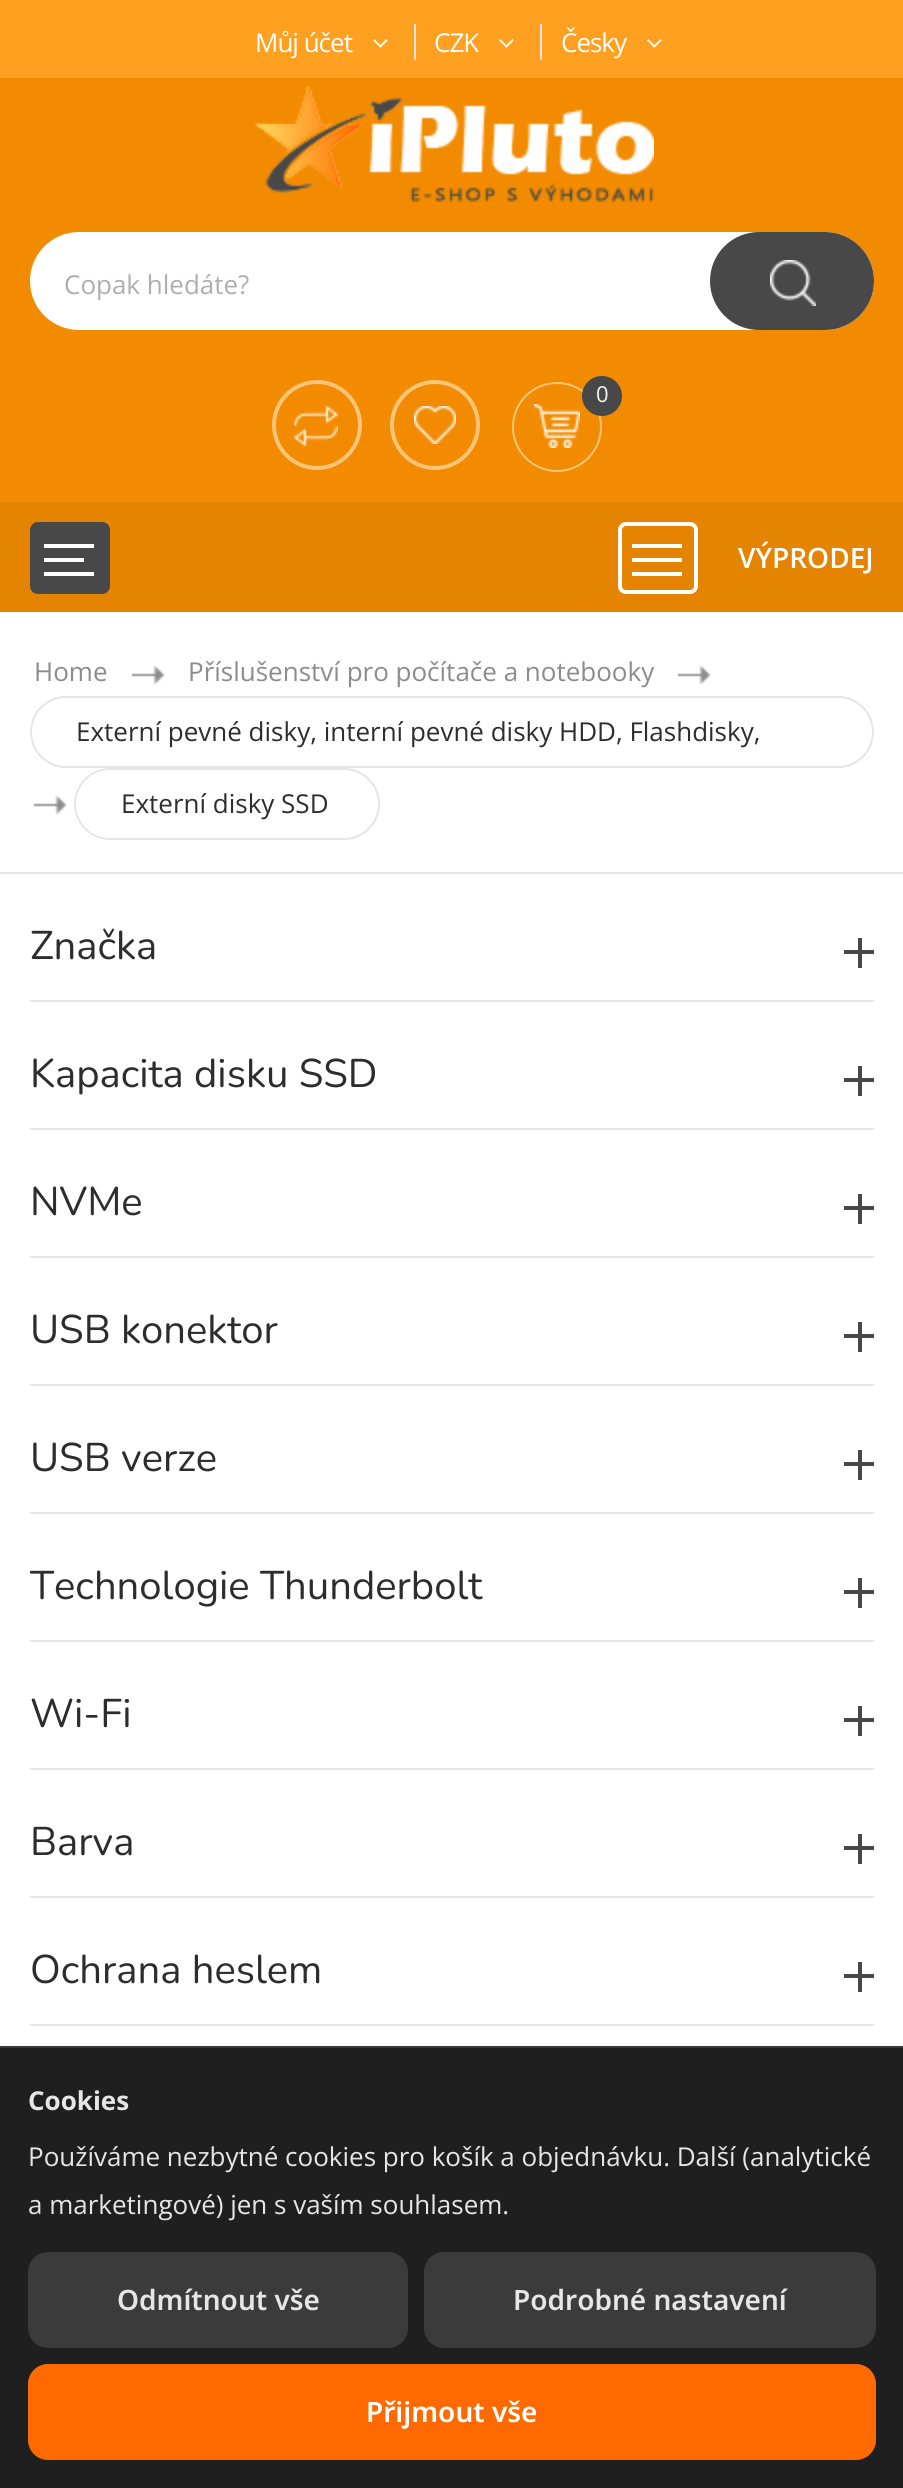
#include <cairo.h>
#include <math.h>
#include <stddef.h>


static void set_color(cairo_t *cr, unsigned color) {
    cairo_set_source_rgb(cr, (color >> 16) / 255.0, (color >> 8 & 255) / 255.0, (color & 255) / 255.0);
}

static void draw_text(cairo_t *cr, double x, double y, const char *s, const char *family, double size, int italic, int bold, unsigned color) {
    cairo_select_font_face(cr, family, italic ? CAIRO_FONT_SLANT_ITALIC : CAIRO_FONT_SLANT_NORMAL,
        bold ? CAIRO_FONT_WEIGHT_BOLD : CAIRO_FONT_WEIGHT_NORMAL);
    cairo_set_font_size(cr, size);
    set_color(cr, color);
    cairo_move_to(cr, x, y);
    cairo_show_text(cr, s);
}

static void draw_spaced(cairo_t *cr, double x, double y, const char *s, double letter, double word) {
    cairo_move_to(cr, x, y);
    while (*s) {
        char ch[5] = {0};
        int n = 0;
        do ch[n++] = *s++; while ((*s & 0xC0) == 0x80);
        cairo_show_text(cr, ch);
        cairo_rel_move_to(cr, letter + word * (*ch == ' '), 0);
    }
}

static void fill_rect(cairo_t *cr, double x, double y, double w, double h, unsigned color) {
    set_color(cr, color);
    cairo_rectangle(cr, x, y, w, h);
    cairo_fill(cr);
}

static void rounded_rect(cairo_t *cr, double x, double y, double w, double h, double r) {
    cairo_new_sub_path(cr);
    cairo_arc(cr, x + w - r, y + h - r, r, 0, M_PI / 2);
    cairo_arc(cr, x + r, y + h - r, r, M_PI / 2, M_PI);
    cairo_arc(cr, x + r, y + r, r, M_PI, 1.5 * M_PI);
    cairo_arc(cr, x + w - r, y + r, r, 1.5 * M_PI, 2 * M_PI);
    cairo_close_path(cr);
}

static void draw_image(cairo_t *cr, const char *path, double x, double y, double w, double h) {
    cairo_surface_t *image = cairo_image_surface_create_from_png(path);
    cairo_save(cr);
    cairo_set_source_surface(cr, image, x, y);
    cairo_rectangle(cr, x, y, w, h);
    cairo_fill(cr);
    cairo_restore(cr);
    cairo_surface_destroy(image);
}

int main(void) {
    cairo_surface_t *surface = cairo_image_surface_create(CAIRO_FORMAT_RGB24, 903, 2488);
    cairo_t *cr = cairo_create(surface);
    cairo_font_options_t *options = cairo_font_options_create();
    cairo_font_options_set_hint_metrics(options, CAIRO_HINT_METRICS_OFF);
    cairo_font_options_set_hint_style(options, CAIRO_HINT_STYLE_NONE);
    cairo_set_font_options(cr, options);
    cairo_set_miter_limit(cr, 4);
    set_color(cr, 0xFFFFFF);
    cairo_paint(cr);
    fill_rect(cr, 0, 0, 903, 78, 0xFFA020);
    cairo_select_font_face(cr, "Open Sans", CAIRO_FONT_SLANT_NORMAL, CAIRO_FONT_WEIGHT_NORMAL);
    cairo_set_font_size(cr, 26);
    set_color(cr, 0xFFFFFF);
    draw_spaced(cr, 255, 52, "Můj účet", -1, 0);
    draw_image(cr, "assets/img1.png", 373, 39, 15, 9);
    fill_rect(cr, 414, 24, 2, 36, 0xE5E5E5);
    set_color(cr, 0xFFFFFF);
    draw_spaced(cr, 434, 52, "CZK", -1, 0);
    draw_image(cr, "assets/img1.png", 499, 39, 15, 9);
    fill_rect(cr, 540, 24, 2, 36, 0xE5E5E5);
    set_color(cr, 0xFFFFFF);
    draw_spaced(cr, 561, 52, "Česky", -1, 0);
    draw_image(cr, "assets/img1.png", 647, 39, 15, 9);
    fill_rect(cr, 0, 78, 903, 424, 0xF28B00);
    draw_image(cr, "assets/img2.png", 254, 85, 400, 117);
    set_color(cr, 0xFFFFFF);
    rounded_rect(cr, 32, 234, 840, 94, 47);
    cairo_fill_preserve(cr);
    cairo_set_line_width(cr, 4);
    cairo_stroke(cr);
    draw_text(cr, 64, 294, "Copak hledáte?", "Open Sans", 26, 0, 0, 0xAEAEAE);
    set_color(cr, 0x484848);
    rounded_rect(cr, 710, 232, 164, 98, 49);
    cairo_fill(cr);
    draw_image(cr, "assets/img3.png", 770, 260, 46, 46);
    cairo_arc(cr, 317, 425, 43, 0, 2 * M_PI);
    set_color(cr, 0xFEC579);
    cairo_stroke(cr);
    draw_image(cr, "assets/img4.png", 294, 406, 44, 40);
    cairo_arc(cr, 435, 425, 43, 0, 2 * M_PI);
    cairo_stroke(cr);
    draw_image(cr, "assets/img5.png", 414, 406, 42, 38);
    cairo_arc(cr, 557, 427, 44, 0, 2 * M_PI);
    cairo_set_line_width(cr, 2);
    cairo_stroke(cr);
    set_color(cr, 0x484848);
    cairo_arc(cr, 602, 396, 20, 0, 2 * M_PI);
    cairo_fill(cr);
    draw_text(cr, 596, 402, "0", "Open Sans", 22, 0, 0, 0xF4F4F4);
    draw_image(cr, "assets/img6.png", 534, 404, 46, 44);
    fill_rect(cr, 0, 502, 903, 110, 0xE58400);
    set_color(cr, 0x484848);
    rounded_rect(cr, 32, 524, 76, 68, 6);
    cairo_fill_preserve(cr);
    cairo_set_line_width(cr, 4);
    cairo_stroke(cr);
    fill_rect(cr, 44, 544, 50, 4, 0xFFFFFF);
    fill_rect(cr, 44, 558, 40, 4, 0xFFFFFF);
    fill_rect(cr, 44, 572, 50, 4, 0xFFFFFF);
    rounded_rect(cr, 620, 524, 76, 68, 6);
    cairo_stroke(cr);
    fill_rect(cr, 632, 544, 50, 4, 0xFFFFFF);
    fill_rect(cr, 632, 558, 50, 4, 0xFFFFFF);
    fill_rect(cr, 632, 572, 50, 4, 0xFFFFFF);
    draw_text(cr, 738, 568, "VÝPRODEJ", "Open Sans SemiBold", 28, 0, 0, 0xFFFFFF);
    fill_rect(cr, 0, 872, 903, 2, 0xE5E5E5);
    draw_text(cr, 34, 681, "Home", "Open Sans", 26, 0, 0, 0x8C8C8C);
    draw_image(cr, "assets/img7.png", 131, 665, 34, 20);
    draw_text(cr, 188, 681, "Příslušenství pro počítače a notebooky", "Open Sans", 26, 0, 0, 0x8C8C8C);
    draw_image(cr, "assets/img7.png", 677, 665, 34, 20);
    rounded_rect(cr, 31, 697, 842, 70, 35);
    set_color(cr, 0xE5E5E5);
    cairo_set_line_width(cr, 2);
    cairo_stroke(cr);
    draw_text(cr, 76, 741, "Externí pevné disky, interní pevné disky HDD, Flashdisky,", "Open Sans", 26, 0, 0, 0x2D2D2D);
    draw_image(cr, "assets/img7.png", 33, 795, 34, 20);
    rounded_rect(cr, 75, 769, 304, 70, 35);
    set_color(cr, 0xE5E5E5);
    cairo_stroke(cr);
    draw_text(cr, 121, 813, "Externí disky SSD", "Open Sans", 26, 0, 0, 0x2D2D2D);
    fill_rect(cr, 30, 1000, 844, 2, 0xE5E5E5);
    draw_text(cr, 30, 959, "Značka", "Nunito", 40, 0, 0, 0x2D2D2D);
    fill_rect(cr, 844, 950, 30, 4, 0x484848);
    fill_rect(cr, 858, 938, 4, 30, 0x484848);
    fill_rect(cr, 30, 1128, 844, 2, 0xE5E5E5);
    draw_text(cr, 30, 1087, "Kapacita disku SSD", "Nunito", 40, 0, 0, 0x2D2D2D);
    fill_rect(cr, 844, 1078, 30, 4, 0x484848);
    fill_rect(cr, 858, 1066, 4, 30, 0x484848);
    fill_rect(cr, 30, 1256, 844, 2, 0xE5E5E5);
    draw_text(cr, 30, 1215, "NVMe", "Nunito", 40, 0, 0, 0x2D2D2D);
    fill_rect(cr, 844, 1206, 30, 4, 0x484848);
    fill_rect(cr, 858, 1194, 4, 30, 0x484848);
    fill_rect(cr, 30, 1384, 844, 2, 0xE5E5E5);
    draw_text(cr, 30, 1343, "USB konektor", "Nunito", 40, 0, 0, 0x2D2D2D);
    fill_rect(cr, 844, 1334, 30, 4, 0x484848);
    fill_rect(cr, 858, 1322, 4, 30, 0x484848);
    fill_rect(cr, 30, 1512, 844, 2, 0xE5E5E5);
    draw_text(cr, 30, 1471, "USB verze", "Nunito", 40, 0, 0, 0x2D2D2D);
    fill_rect(cr, 844, 1462, 30, 4, 0x484848);
    fill_rect(cr, 858, 1450, 4, 30, 0x484848);
    fill_rect(cr, 30, 1640, 844, 2, 0xE5E5E5);
    draw_text(cr, 30, 1599, "Technologie Thunderbolt", "Nunito", 40, 0, 0, 0x2D2D2D);
    fill_rect(cr, 844, 1590, 30, 4, 0x484848);
    fill_rect(cr, 858, 1578, 4, 30, 0x484848);
    fill_rect(cr, 30, 1768, 844, 2, 0xE5E5E5);
    draw_text(cr, 30, 1727, "Wi-Fi", "Nunito", 40, 0, 0, 0x2D2D2D);
    fill_rect(cr, 844, 1718, 30, 4, 0x484848);
    fill_rect(cr, 858, 1706, 4, 30, 0x484848);
    fill_rect(cr, 30, 1896, 844, 2, 0xE5E5E5);
    draw_text(cr, 30, 1855, "Barva", "Nunito", 40, 0, 0, 0x2D2D2D);
    fill_rect(cr, 844, 1846, 30, 4, 0x484848);
    fill_rect(cr, 858, 1834, 4, 30, 0x484848);
    fill_rect(cr, 30, 2024, 844, 2, 0xE5E5E5);
    draw_text(cr, 30, 1983, "Ochrana heslem", "Nunito", 40, 0, 0, 0x2D2D2D);
    fill_rect(cr, 844, 1974, 30, 4, 0x484848);
    fill_rect(cr, 858, 1962, 4, 30, 0x484848);
    fill_rect(cr, 0, 2048, 903, 440, 0x1F1F1F);
    fill_rect(cr, 0, 2046, 903, 2, 0x3A3A3A);
    draw_text(cr, 28, 2110, "Cookies", "Open Sans", 26, 0, 1, 0xE6E6E6);
    draw_text(cr, 28, 2166, "Používáme nezbytné cookies pro košík a objednávku. Další (analytické", "Open Sans", 26, 0, 0, 0xE6E6E6);
    draw_text(cr, 28, 2214, "a marketingové) jen s vaším souhlasem.", "Open Sans", 26, 0, 0, 0xE6E6E6);
    set_color(cr, 0x3B3B3B);
    rounded_rect(cr, 28, 2252, 380, 96, 20);
    cairo_fill(cr);
    draw_text(cr, 117, 2310, "Odmítnout vše", "Noto Sans SemiBold", 28, 0, 0, 0xE6E6E6);
    set_color(cr, 0x3B3B3B);
    rounded_rect(cr, 424, 2252, 452, 96, 20);
    cairo_fill(cr);
    draw_text(cr, 513, 2310, "Podrobné nastavení", "Noto Sans SemiBold", 28, 0, 0, 0xE6E6E6);
    set_color(cr, 0xFF6A00);
    rounded_rect(cr, 28, 2364, 848, 96, 20);
    cairo_fill(cr);
    draw_text(cr, 366, 2422, "Přijmout vše", "Noto Sans SemiBold", 28, 0, 0, 0xFFFFFF);
    cairo_surface_write_to_png(surface, "output.png");
    cairo_font_options_destroy(options);
    cairo_destroy(cr);
    cairo_surface_destroy(surface);
    return 0;
}
